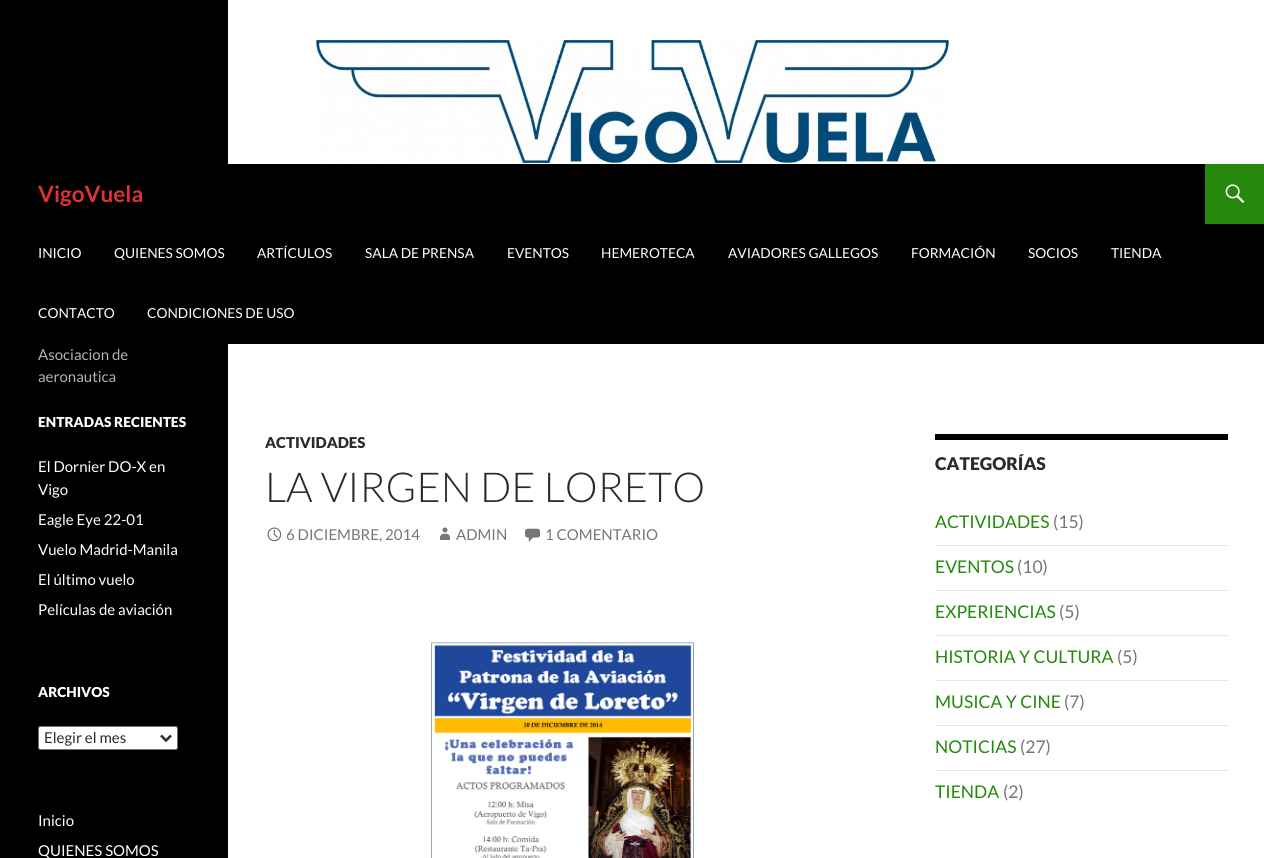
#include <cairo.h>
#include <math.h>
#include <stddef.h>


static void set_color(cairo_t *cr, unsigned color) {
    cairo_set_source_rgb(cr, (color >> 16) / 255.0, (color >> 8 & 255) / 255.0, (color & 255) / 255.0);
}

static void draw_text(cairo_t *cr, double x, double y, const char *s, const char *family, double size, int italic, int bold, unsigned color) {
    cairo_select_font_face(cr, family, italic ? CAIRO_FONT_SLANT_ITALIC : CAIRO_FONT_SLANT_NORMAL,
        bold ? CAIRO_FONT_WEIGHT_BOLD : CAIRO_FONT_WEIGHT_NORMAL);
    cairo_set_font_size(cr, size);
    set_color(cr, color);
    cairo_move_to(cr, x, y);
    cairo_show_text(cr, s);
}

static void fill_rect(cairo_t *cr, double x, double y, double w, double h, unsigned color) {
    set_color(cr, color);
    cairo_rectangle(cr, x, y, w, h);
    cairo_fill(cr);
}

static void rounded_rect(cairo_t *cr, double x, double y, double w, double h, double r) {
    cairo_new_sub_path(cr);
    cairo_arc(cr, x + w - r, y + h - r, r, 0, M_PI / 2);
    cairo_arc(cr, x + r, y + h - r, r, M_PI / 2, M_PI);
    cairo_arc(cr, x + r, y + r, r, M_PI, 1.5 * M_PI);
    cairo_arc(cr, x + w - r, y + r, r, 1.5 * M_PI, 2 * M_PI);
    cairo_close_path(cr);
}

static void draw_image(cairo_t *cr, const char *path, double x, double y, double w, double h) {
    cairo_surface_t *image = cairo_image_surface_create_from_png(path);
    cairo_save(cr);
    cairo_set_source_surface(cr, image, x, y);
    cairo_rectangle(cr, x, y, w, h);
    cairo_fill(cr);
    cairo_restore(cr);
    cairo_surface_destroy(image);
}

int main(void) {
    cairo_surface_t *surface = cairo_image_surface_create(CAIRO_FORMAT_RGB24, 1264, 858);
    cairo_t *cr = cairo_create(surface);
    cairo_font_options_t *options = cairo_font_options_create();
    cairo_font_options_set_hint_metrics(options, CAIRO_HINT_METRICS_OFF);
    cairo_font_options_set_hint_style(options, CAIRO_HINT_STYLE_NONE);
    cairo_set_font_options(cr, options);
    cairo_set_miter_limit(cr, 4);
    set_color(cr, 0xFFFFFF);
    cairo_paint(cr);
    fill_rect(cr, 0, 0, 228, 858, 0x000000);
    draw_image(cr, "assets/img1.png", 316, 40, 633, 124);
    fill_rect(cr, 228, 164, 1036, 180, 0x000000);
    draw_text(cr, 38, 202, "VigoVuela", "Lato", 22.5, 0, 1, 0xDD3333);
    fill_rect(cr, 1205, 164, 59, 60, 0x24890D);
    draw_image(cr, "assets/img2.png", 1225, 184, 20, 19);
    draw_text(cr, 38, 258, "INICIO", "Lato", 13.75, 0, 0, 0xFFFFFF);
    draw_text(cr, 114, 258, "QUIENES SOMOS", "Lato", 13.75, 0, 0, 0xFFFFFF);
    draw_text(cr, 257, 258, "ARTÍCULOS", "Lato", 13.75, 0, 0, 0xFFFFFF);
    draw_text(cr, 365, 258, "SALA DE PRENSA", "Lato", 13.75, 0, 0, 0xFFFFFF);
    draw_text(cr, 507, 258, "EVENTOS", "Lato", 13.75, 0, 0, 0xFFFFFF);
    draw_text(cr, 601, 258, "HEMEROTECA", "Lato", 13.75, 0, 0, 0xFFFFFF);
    draw_text(cr, 728, 258, "AVIADORES GALLEGOS", "Lato", 13.75, 0, 0, 0xFFFFFF);
    draw_text(cr, 911, 258, "FORMACIÓN", "Lato", 13.75, 0, 0, 0xFFFFFF);
    draw_text(cr, 1028, 258, "SOCIOS", "Lato", 13.75, 0, 0, 0xFFFFFF);
    draw_text(cr, 1111, 258, "TIENDA", "Lato", 13.75, 0, 0, 0xFFFFFF);
    draw_text(cr, 38, 318, "CONTACTO", "Lato", 13.75, 0, 0, 0xFFFFFF);
    draw_text(cr, 147, 318, "CONDICIONES DE USO", "Lato", 13.75, 0, 0, 0xFFFFFF);
    draw_text(cr, 38, 360, "Asociacion de", "Lato", 15, 0, 0, 0xB3B3B3);
    draw_text(cr, 38, 382, "aeronautica", "Lato", 15, 0, 0, 0xB3B3B3);
    draw_text(cr, 38, 427, "ENTRADAS RECIENTES", "Lato Black", 13.75, 0, 0, 0xFFFFFF);
    draw_text(cr, 38, 472, "El Dornier DO-X en", "Lato", 15, 0, 0, 0xFFFFFF);
    draw_text(cr, 38, 495, "Vigo", "Lato", 15, 0, 0, 0xFFFFFF);
    draw_text(cr, 38, 525, "Eagle Eye 22-01", "Lato", 15, 0, 0, 0xFFFFFF);
    draw_text(cr, 38, 555, "Vuelo Madrid-Manila", "Lato", 15, 0, 0, 0xFFFFFF);
    draw_text(cr, 38, 585, "El último vuelo", "Lato", 15, 0, 0, 0xFFFFFF);
    draw_text(cr, 38, 615, "Películas de aviación", "Lato", 15, 0, 0, 0xFFFFFF);
    draw_text(cr, 38, 697, "ARCHIVOS", "Lato Black", 13.75, 0, 0, 0xFFFFFF);
    rounded_rect(cr, 38.5, 726.5, 139, 23, 2);
    cairo_fill_preserve(cr);
    set_color(cr, 0x767676);
    cairo_set_line_width(cr, 1);
    cairo_stroke(cr);
    cairo_new_path(cr);
    cairo_move_to(cr, 161, 735.5);
    cairo_line_to(cr, 166, 740.5);
    cairo_line_to(cr, 171, 735.5);
    set_color(cr, 0x2B2B2B);
    cairo_set_line_width(cr, 2.5);
    cairo_stroke(cr);
    draw_text(cr, 44, 743, "Elegir el mes", "Lato", 15, 0, 0, 0x2B2B2B);
    draw_text(cr, 38, 826, "Inicio", "Lato", 15, 0, 0, 0xFFFFFF);
    draw_text(cr, 38, 856, "QUIENES SOMOS", "Lato", 15, 0, 0, 0xFFFFFF);
    draw_text(cr, 265, 448, "ACTIVIDADES", "Lato Black", 15, 0, 0, 0x2B2B2B);
    draw_text(cr, 265, 502, "LA VIRGEN DE LORETO", "Lato Light", 41.25, 0, 0, 0x2B2B2B);
    draw_image(cr, "assets/img3.png", 267, 527, 15, 15);
    draw_text(cr, 286, 540, "6 DICIEMBRE, 2014", "Lato", 15, 0, 0, 0x767676);
    draw_image(cr, "assets/img4.png", 440, 527, 10, 13);
    draw_text(cr, 456, 540, "ADMIN", "Lato", 15, 0, 0, 0x767676);
    draw_image(cr, "assets/img5.png", 525, 528, 15, 14);
    draw_text(cr, 545, 540, "1 COMENTARIO", "Lato", 15, 0, 0, 0x767676);
    draw_image(cr, "assets/img6.png", 431, 642, 263, 216);
    fill_rect(cr, 935, 434, 293, 6, 0x000000);
    draw_text(cr, 935, 470, "CATEGORÍAS", "Lato Black", 17.5, 0, 0, 0x2B2B2B);
    draw_text(cr, 935, 528, "ACTIVIDADES", "Lato", 17.5, 0, 0, 0x24890D);
    draw_text(cr, 1053, 528, "(15)", "Lato", 17.5, 0, 0, 0x767676);
    fill_rect(cr, 935, 545, 293, 1, 0xE6E6E6);
    draw_text(cr, 935, 573, "EVENTOS", "Lato", 17.5, 0, 0, 0x24890D);
    draw_text(cr, 1017, 573, "(10)", "Lato", 17.5, 0, 0, 0x767676);
    fill_rect(cr, 935, 590, 293, 1, 0xE6E6E6);
    draw_text(cr, 935, 618, "EXPERIENCIAS", "Lato", 17.5, 0, 0, 0x24890D);
    draw_text(cr, 1059, 618, "(5)", "Lato", 17.5, 0, 0, 0x767676);
    fill_rect(cr, 935, 635, 293, 1, 0xE6E6E6);
    draw_text(cr, 935, 663, "HISTORIA Y CULTURA", "Lato", 17.5, 0, 0, 0x24890D);
    draw_text(cr, 1117, 663, "(5)", "Lato", 17.5, 0, 0, 0x767676);
    fill_rect(cr, 935, 680, 293, 1, 0xE6E6E6);
    draw_text(cr, 935, 708, "MUSICA Y CINE", "Lato", 17.5, 0, 0, 0x24890D);
    draw_text(cr, 1064, 708, "(7)", "Lato", 17.5, 0, 0, 0x767676);
    fill_rect(cr, 935, 725, 293, 1, 0xE6E6E6);
    draw_text(cr, 935, 753, "NOTICIAS", "Lato", 17.5, 0, 0, 0x24890D);
    draw_text(cr, 1020, 753, "(27)", "Lato", 17.5, 0, 0, 0x767676);
    fill_rect(cr, 935, 770, 293, 1, 0xE6E6E6);
    draw_text(cr, 935, 798, "TIENDA", "Lato", 17.5, 0, 0, 0x24890D);
    draw_text(cr, 1003, 798, "(2)", "Lato", 17.5, 0, 0, 0x767676);
    cairo_surface_write_to_png(surface, "output.png");
    cairo_font_options_destroy(options);
    cairo_destroy(cr);
    cairo_surface_destroy(surface);
    return 0;
}
